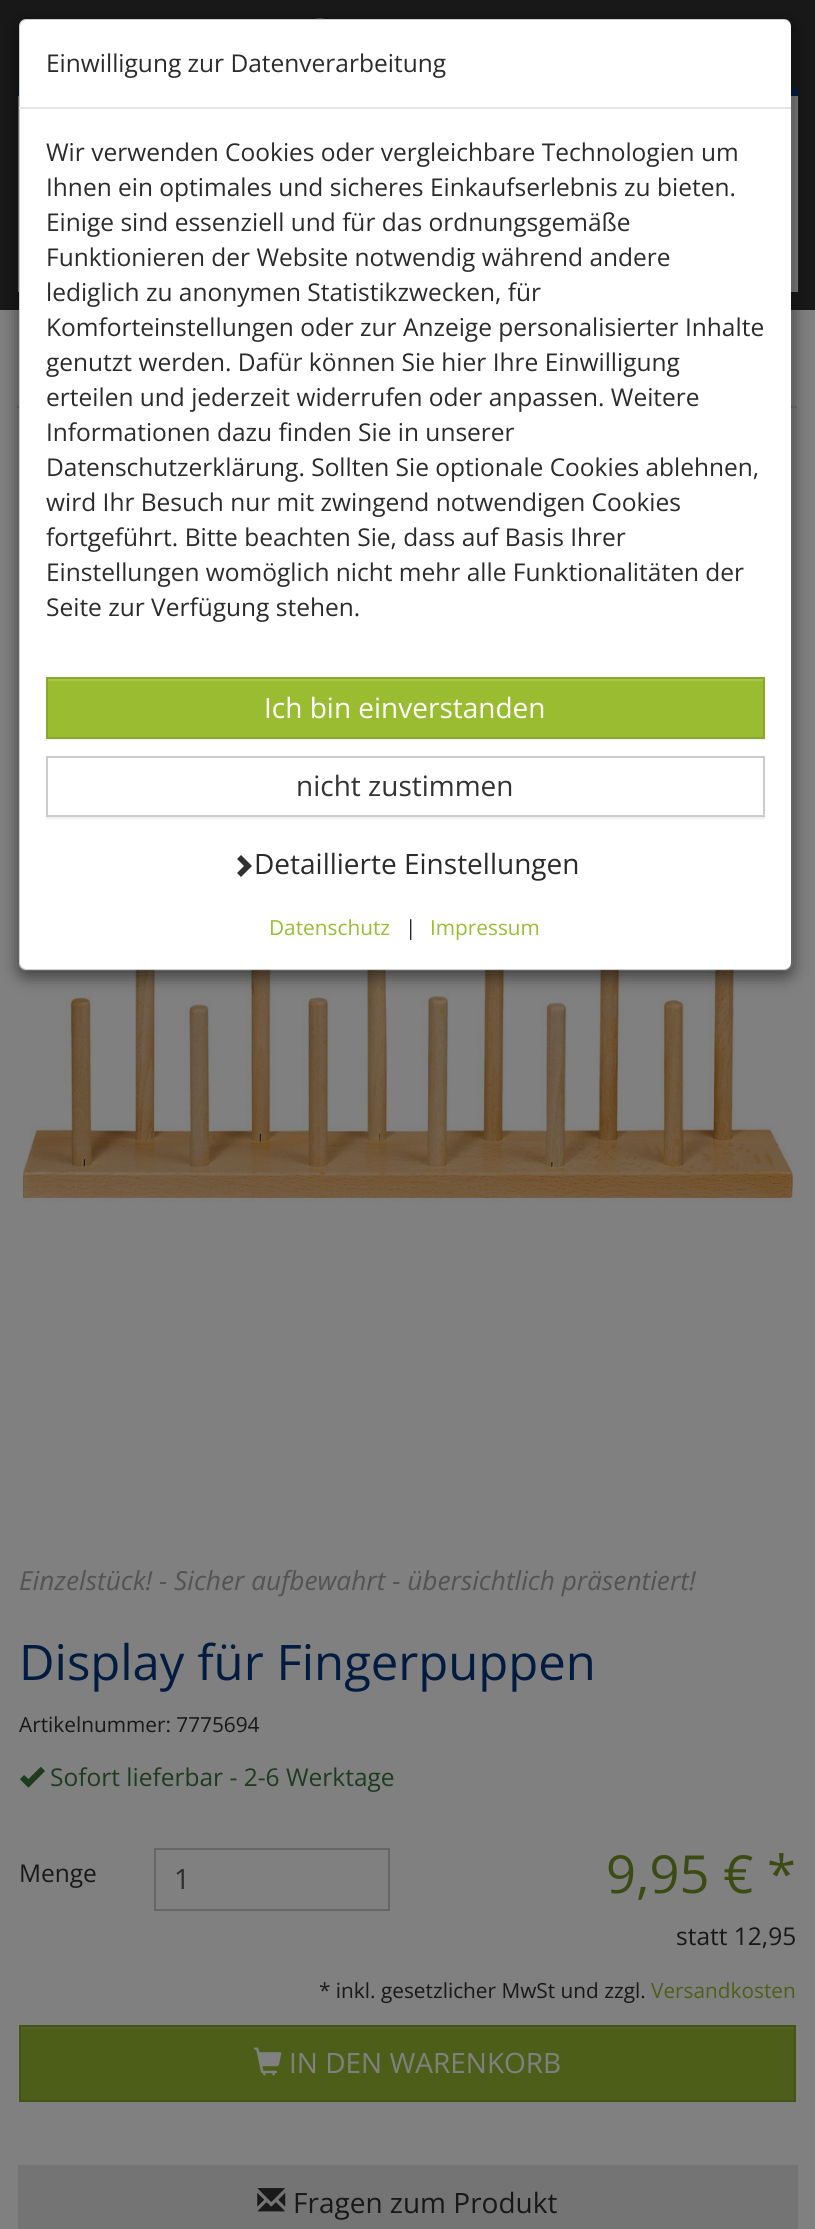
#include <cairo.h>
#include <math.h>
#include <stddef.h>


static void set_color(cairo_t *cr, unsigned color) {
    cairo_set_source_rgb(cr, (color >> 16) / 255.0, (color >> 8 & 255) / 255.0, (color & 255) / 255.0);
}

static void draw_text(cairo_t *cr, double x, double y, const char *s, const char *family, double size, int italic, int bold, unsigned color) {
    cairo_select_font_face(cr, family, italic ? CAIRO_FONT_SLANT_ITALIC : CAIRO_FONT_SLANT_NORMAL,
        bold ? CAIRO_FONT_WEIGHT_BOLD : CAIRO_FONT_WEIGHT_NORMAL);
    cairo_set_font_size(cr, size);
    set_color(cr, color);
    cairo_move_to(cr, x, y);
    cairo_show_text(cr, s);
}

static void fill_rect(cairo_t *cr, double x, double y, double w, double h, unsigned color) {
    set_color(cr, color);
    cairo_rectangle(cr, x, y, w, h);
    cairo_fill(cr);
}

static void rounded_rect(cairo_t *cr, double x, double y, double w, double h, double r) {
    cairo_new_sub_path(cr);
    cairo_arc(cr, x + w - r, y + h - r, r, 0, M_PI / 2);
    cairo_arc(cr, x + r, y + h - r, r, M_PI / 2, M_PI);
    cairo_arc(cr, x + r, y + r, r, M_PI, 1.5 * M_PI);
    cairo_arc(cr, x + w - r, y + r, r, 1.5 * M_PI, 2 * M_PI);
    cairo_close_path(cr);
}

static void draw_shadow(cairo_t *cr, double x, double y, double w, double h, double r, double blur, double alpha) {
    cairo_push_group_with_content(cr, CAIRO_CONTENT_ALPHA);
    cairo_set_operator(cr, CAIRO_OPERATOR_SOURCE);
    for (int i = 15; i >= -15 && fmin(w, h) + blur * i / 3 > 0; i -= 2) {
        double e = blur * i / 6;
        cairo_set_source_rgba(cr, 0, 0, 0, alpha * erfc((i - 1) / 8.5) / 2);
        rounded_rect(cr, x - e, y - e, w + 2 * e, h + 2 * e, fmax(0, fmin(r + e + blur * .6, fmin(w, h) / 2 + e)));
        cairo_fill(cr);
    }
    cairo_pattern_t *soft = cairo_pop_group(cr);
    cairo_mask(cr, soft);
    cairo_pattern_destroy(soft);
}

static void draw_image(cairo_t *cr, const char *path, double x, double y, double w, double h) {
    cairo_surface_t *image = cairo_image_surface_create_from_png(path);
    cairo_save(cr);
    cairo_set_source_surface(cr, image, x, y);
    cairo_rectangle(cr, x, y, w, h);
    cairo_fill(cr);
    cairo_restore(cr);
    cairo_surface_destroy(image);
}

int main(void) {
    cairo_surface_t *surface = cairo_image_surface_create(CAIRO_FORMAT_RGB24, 815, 2229);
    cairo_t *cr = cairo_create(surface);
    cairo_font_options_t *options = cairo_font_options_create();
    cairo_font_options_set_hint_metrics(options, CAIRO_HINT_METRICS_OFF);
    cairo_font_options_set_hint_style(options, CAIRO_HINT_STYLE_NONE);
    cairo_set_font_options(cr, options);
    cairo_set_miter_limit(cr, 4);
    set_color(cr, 0x181818);
    cairo_paint(cr);
    rounded_rect(cr, 307, 19, 25, 24, 12);
    set_color(cr, 0x4D4D4D);
    cairo_stroke(cr);
    fill_rect(cr, 18, 96, 780, 196, 0x808080);
    fill_rect(cr, 18, 88, 780, 8, 0x021C41);
    fill_rect(cr, 0, 310, 815, 1919, 0x808080);
    cairo_new_path(cr);
    cairo_move_to(cr, 17.5, 407);
    cairo_line_to(cr, 798, 407);
    set_color(cr, 0x666666);
    cairo_set_line_width(cr, 1.8);
    cairo_set_dash(cr, (double[]){1.75, 1.75}, 2, 0);
    cairo_stroke(cr);
    draw_image(cr, "assets/img1.png", 23, 868, 770, 334);
    cairo_save(cr);
    cairo_set_fill_rule(cr, CAIRO_FILL_RULE_EVEN_ODD);
    cairo_new_path(cr);
    cairo_move_to(cr, 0, 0);
    cairo_line_to(cr, 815, 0);
    cairo_line_to(cr, 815, 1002);
    cairo_line_to(cr, 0, 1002);
    cairo_close_path(cr);
    cairo_move_to(cr, 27, 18);
    cairo_line_to(cr, 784, 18);
    cairo_curve_to(cr, 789, 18, 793, 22, 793, 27);
    cairo_line_to(cr, 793, 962);
    cairo_curve_to(cr, 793, 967, 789, 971, 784, 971);
    cairo_line_to(cr, 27, 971);
    cairo_curve_to(cr, 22, 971, 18, 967, 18, 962);
    cairo_line_to(cr, 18, 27);
    cairo_curve_to(cr, 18, 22, 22, 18, 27, 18);
    cairo_close_path(cr);
    cairo_clip(cr);
    set_color(cr, 0x000000);
    draw_shadow(cr, 18, 23, 775, 954, 9, 8, 0.5);
    cairo_restore(cr);
    set_color(cr, 0xFFFFFF);
    rounded_rect(cr, 19, 19, 772, 951, 7);
    cairo_fill(cr);
    rounded_rect(cr, 19, 19, 773, 951, 8);
    cairo_set_source_rgba(cr, 0, 0, 0, 0.2);
    cairo_set_line_width(cr, 2);
    cairo_set_dash(cr, NULL, 0, 0);
    cairo_stroke(cr);
    fill_rect(cr, 19, 107, 772, 2, 0xE5E5E5);
    draw_text(cr, 46, 72, "Einwilligung zur Datenverarbeitung", "Open Sans", 24.5, 0, 0, 0x2B2B2B);
    draw_text(cr, 46, 161, "Wir verwenden Cookies oder vergleichbare Technologien um", "Open Sans", 24.5, 0, 0, 0x2B2B2B);
    draw_text(cr, 46, 196, "Ihnen ein optimales und sicheres Einkaufserlebnis zu bieten.", "Open Sans", 24.5, 0, 0, 0x2B2B2B);
    draw_text(cr, 46, 231, "Einige sind essenziell und für das ordnungsgemäße", "Open Sans", 24.5, 0, 0, 0x2B2B2B);
    draw_text(cr, 46, 266, "Funktionieren der Website notwendig während andere", "Open Sans", 24.5, 0, 0, 0x2B2B2B);
    draw_text(cr, 46, 301, "lediglich zu anonymen Statistikzwecken, für", "Open Sans", 24.5, 0, 0, 0x2B2B2B);
    draw_text(cr, 46, 336, "Komforteinstellungen oder zur Anzeige personalisierter Inhalte", "Open Sans", 24.5, 0, 0, 0x2B2B2B);
    draw_text(cr, 46, 371, "genutzt werden. Dafür können Sie hier Ihre Einwilligung", "Open Sans", 24.5, 0, 0, 0x2B2B2B);
    draw_text(cr, 46, 406, "erteilen und jederzeit widerrufen oder anpassen. Weitere", "Open Sans", 24.5, 0, 0, 0x2B2B2B);
    draw_text(cr, 46, 441, "Informationen dazu finden Sie in unserer", "Open Sans", 24.5, 0, 0, 0x2B2B2B);
    draw_text(cr, 46, 476, "Datenschutzerklärung. Sollten Sie optionale Cookies ablehnen,", "Open Sans", 24.5, 0, 0, 0x2B2B2B);
    draw_text(cr, 46, 511, "wird Ihr Besuch nur mit zwingend notwendigen Cookies", "Open Sans", 24.5, 0, 0, 0x2B2B2B);
    draw_text(cr, 46, 546, "fortgeführt. Bitte beachten Sie, dass auf Basis Ihrer", "Open Sans", 24.5, 0, 0, 0x2B2B2B);
    draw_text(cr, 46, 581, "Einstellungen womöglich nicht mehr alle Funktionalitäten der", "Open Sans", 24.5, 0, 0, 0x2B2B2B);
    draw_text(cr, 46, 616, "Seite zur Verfügung stehen.", "Open Sans", 24.5, 0, 0, 0x2B2B2B);
    set_color(cr, 0x000000);
    draw_shadow(cr, 46, 679, 719, 61, 0, 1, 0.07);
    fill_rect(cr, 48, 681, 715, 56, 0x9ABC30);
    fill_rect(cr, 47, 679, 716, 2, 0xA9C64F);
    cairo_rectangle(cr, 47, 678, 717, 60);
    set_color(cr, 0x89A82B);
    cairo_stroke(cr);
    draw_text(cr, 264, 718, "Ich bin einverstanden", "Open Sans", 28, 0, 0, 0xFFFFFF);
    set_color(cr, 0x000000);
    draw_shadow(cr, 46, 758, 719, 61, 0, 1, 0.07);
    set_color(cr, 0xFFFFFF);
    cairo_rectangle(cr, 47, 757, 717, 59);
    cairo_fill_preserve(cr);
    set_color(cr, 0xCCCCCC);
    cairo_stroke(cr);
    draw_text(cr, 296, 796, "nicht zustimmen", "Open Sans", 28, 0, 0, 0x333333);
    set_color(cr, 0x303030);
    cairo_new_path(cr);
    cairo_move_to(cr, 252, 866);
    cairo_line_to(cr, 241, 877);
    cairo_line_to(cr, 237, 873);
    cairo_line_to(cr, 244, 866);
    cairo_line_to(cr, 237, 859);
    cairo_line_to(cr, 241, 855);
    cairo_close_path(cr);
    cairo_fill(cr);
    draw_text(cr, 254, 874, "Detaillierte Einstellungen", "Open Sans", 28, 0, 0, 0x2B2B2B);
    draw_text(cr, 269, 935, "Datenschutz", "Open Sans", 20.8, 0, 0, 0x9ABC30);
    draw_text(cr, 405, 935, "|", "Open Sans", 20.8, 0, 0, 0x2B2B2B);
    draw_text(cr, 430, 935, "Impressum", "Open Sans", 20.8, 0, 0, 0x9ABC30);
    draw_text(cr, 19, 1590, "Einzelstück! - Sicher aufbewahrt - übersichtlich präsentiert!", "Open Sans", 26.25, 1, 0, 0x535353);
    draw_text(cr, 19, 1680, "Display für Fingerpuppen", "Open Sans", 49, 0, 0, 0x021C41);
    draw_text(cr, 19, 1732, "Artikelnummer: 7775694", "Open Sans", 20.8, 0, 0, 0x181818);
    draw_image(cr, "assets/img2.png", 20, 1767, 25, 21);
    draw_text(cr, 50, 1786, "Sofort lieferbar - 2-6 Werktage", "Open Sans", 24.5, 0, 0, 0x1E3B1F);
    draw_text(cr, 606, 1893, "9,95 € *", "Open Sans", 52.5, 0, 0, 0x3D4A13);
    draw_text(cr, 19, 1882, "Menge", "Open Sans", 24.5, 0, 0, 0x181818);
    cairo_rectangle(cr, 155, 1849, 234, 61);
    set_color(cr, 0x666666);
    cairo_stroke(cr);
    draw_text(cr, 174, 1889, "1", "Open Sans", 28, 0, 0, 0x2B2B2B);
    draw_text(cr, 676, 1945, "statt 12,95", "Open Sans", 24.5, 0, 0, 0x181818);
    draw_text(cr, 319, 1998, "* inkl. gesetzlicher MwSt und zzgl.", "Open Sans", 20.8, 0, 0, 0x181818);
    draw_text(cr, 651, 1998, "Versandkosten", "Open Sans", 20.8, 0, 0, 0x4D5E18);
    fill_rect(cr, 21, 2029, 773, 71, 0x4D5E18);
    fill_rect(cr, 21, 2027, 774, 2, 0x556328);
    cairo_rectangle(cr, 20, 2026, 775, 75);
    set_color(cr, 0x455416);
    cairo_stroke(cr);
    draw_image(cr, "assets/img3.png", 253, 2047, 29, 29);
    draw_text(cr, 289, 2073, "IN DEN WARENKORB", "Open Sans", 28, 0, 0, 0x808080);
    fill_rect(cr, 18, 2165, 780, 64, 0x747474);
    draw_image(cr, "assets/img4.png", 257, 2188, 29, 24);
    draw_text(cr, 293, 2213, "Fragen zum Produkt", "Open Sans", 28, 0, 0, 0x181818);
    cairo_surface_write_to_png(surface, "output.png");
    cairo_font_options_destroy(options);
    cairo_destroy(cr);
    cairo_surface_destroy(surface);
    return 0;
}
